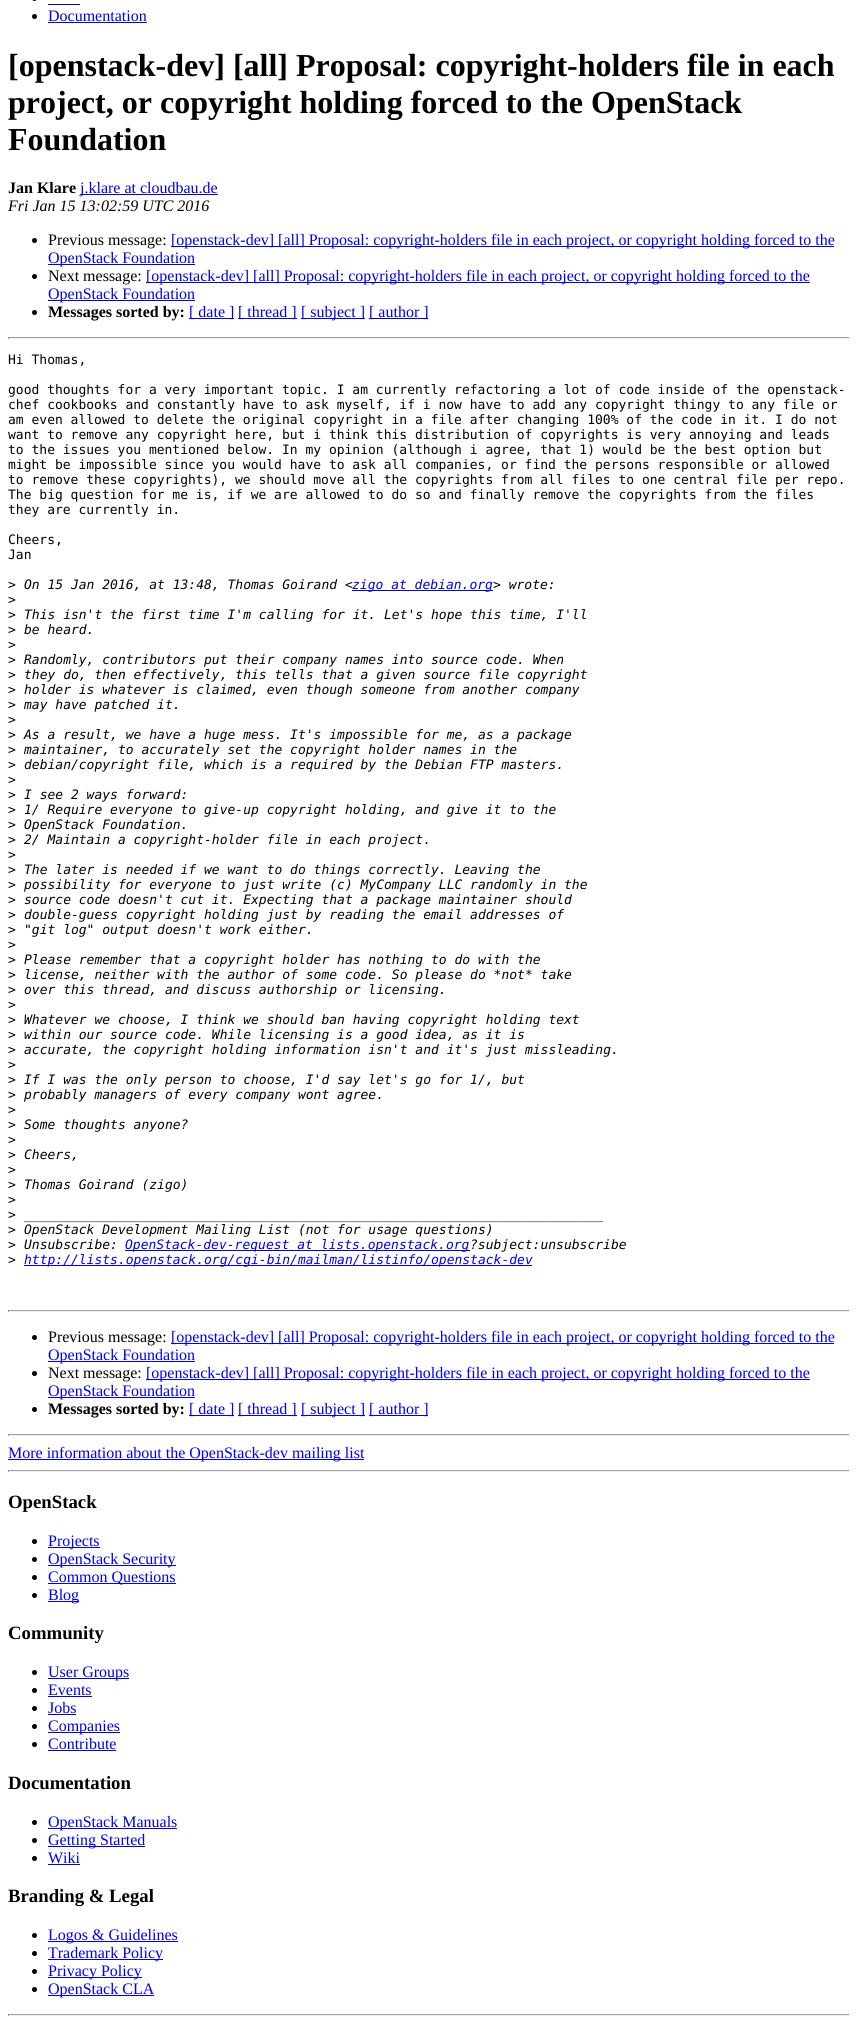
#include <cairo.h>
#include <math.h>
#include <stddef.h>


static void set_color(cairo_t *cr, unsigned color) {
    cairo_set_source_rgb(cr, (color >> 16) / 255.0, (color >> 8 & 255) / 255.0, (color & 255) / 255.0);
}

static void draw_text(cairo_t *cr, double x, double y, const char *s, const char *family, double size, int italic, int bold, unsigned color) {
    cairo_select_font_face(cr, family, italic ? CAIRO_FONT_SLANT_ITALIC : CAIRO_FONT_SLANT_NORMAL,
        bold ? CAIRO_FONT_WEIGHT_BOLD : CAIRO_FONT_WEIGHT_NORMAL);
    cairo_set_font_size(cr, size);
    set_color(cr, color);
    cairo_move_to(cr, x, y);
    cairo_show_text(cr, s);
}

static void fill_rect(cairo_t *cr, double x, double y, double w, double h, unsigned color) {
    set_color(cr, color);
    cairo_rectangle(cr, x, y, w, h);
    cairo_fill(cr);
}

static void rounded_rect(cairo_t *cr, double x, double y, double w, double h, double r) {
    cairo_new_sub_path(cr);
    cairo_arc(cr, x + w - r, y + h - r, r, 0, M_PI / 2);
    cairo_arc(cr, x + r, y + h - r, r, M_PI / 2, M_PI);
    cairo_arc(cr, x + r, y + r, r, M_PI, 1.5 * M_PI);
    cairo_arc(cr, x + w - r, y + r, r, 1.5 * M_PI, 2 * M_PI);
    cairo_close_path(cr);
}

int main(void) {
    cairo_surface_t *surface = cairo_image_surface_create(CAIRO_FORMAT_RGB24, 858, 2024);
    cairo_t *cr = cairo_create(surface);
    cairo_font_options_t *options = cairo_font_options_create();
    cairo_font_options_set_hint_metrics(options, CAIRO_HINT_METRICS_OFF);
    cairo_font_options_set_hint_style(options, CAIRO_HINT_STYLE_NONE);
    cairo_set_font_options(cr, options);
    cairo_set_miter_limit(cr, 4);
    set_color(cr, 0xFFFFFF);
    cairo_paint(cr);
    set_color(cr, 0x000000);
    rounded_rect(cr, 32, -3, 5, 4, 2.5);
    cairo_fill(cr);
    fill_rect(cr, 48, 4, 32, 1, 0x0000EE);
    set_color(cr, 0x000000);
    cairo_arc(cr, 34.5, 16.5, 2.5, 0, 2 * M_PI);
    cairo_fill(cr);
    draw_text(cr, 48, 21, "Documentation", "Liberation Serif", 16, 0, 0, 0x0000EE);
    fill_rect(cr, 48, 22, 99, 1, 0x0000EE);
    draw_text(cr, 8, 76, "[openstack-dev] [all] Proposal: copyright-holders file in each", "Liberation Serif", 32, 0, 1, 0x000000);
    draw_text(cr, 8, 113, "project, or copyright holding forced to the OpenStack", "Liberation Serif", 32, 0, 1, 0x000000);
    draw_text(cr, 8, 150, "Foundation", "Liberation Serif", 32, 0, 1, 0x000000);
    draw_text(cr, 8, 193, "Jan Klare", "Liberation Serif", 16, 0, 1, 0x000000);
    fill_rect(cr, 80, 194, 138, 1, 0x0000EE);
    draw_text(cr, 80, 193, "j.klare at cloudbau.de", "Liberation Serif", 16, 0, 0, 0x0000EE);
    draw_text(cr, 8, 211, "Fri Jan 15 13:02:59 UTC 2016", "Liberation Serif", 16, 1, 0, 0x000000);
    cairo_new_path(cr);
    cairo_arc(cr, 34.5, 240.5, 2.5, 0, 2 * M_PI);
    cairo_fill(cr);
    draw_text(cr, 48, 245, "Previous message:", "Liberation Serif", 16, 0, 0, 0x000000);
    fill_rect(cr, 171, 246, 663, 1, 0x0000EE);
    draw_text(cr, 171, 245, "[openstack-dev] [all] Proposal: copyright-holders file in each project, or copyright holding forced to the", "Liberation Serif", 16, 0, 0, 0x0000EE);
    fill_rect(cr, 48, 264, 147, 1, 0x0000EE);
    draw_text(cr, 48, 263, "OpenStack Foundation", "Liberation Serif", 16, 0, 0, 0x0000EE);
    set_color(cr, 0x000000);
    cairo_new_path(cr);
    cairo_arc(cr, 34.5, 276.5, 2.5, 0, 2 * M_PI);
    cairo_fill(cr);
    draw_text(cr, 48, 281, "Next message:", "Liberation Serif", 16, 0, 0, 0x000000);
    fill_rect(cr, 146, 282, 664, 1, 0x0000EE);
    draw_text(cr, 146, 281, "[openstack-dev] [all] Proposal: copyright-holders file in each project, or copyright holding forced to the", "Liberation Serif", 16, 0, 0, 0x0000EE);
    fill_rect(cr, 48, 300, 147, 1, 0x0000EE);
    draw_text(cr, 48, 299, "OpenStack Foundation", "Liberation Serif", 16, 0, 0, 0x0000EE);
    set_color(cr, 0x000000);
    cairo_new_path(cr);
    cairo_arc(cr, 34.5, 312.5, 2.5, 0, 2 * M_PI);
    cairo_fill(cr);
    draw_text(cr, 48, 317, "Messages sorted by:", "Liberation Serif", 16, 0, 1, 0x000000);
    fill_rect(cr, 189, 318, 45, 1, 0x0000EE);
    draw_text(cr, 189, 317, "[ date ]", "Liberation Serif", 16, 0, 0, 0x0000EE);
    fill_rect(cr, 238, 318, 59, 1, 0x0000EE);
    draw_text(cr, 238, 317, "[ thread ]", "Liberation Serif", 16, 0, 0, 0x0000EE);
    fill_rect(cr, 301, 318, 64, 1, 0x0000EE);
    draw_text(cr, 301, 317, "[ subject ]", "Liberation Serif", 16, 0, 0, 0x0000EE);
    fill_rect(cr, 369, 318, 59, 1, 0x0000EE);
    draw_text(cr, 369, 317, "[ author ]", "Liberation Serif", 16, 0, 0, 0x0000EE);
    fill_rect(cr, 8, 337, 842, 1, 0x9F9F9F);
    fill_rect(cr, 849, 337, 1, 2, 0xEEEEEE);
    fill_rect(cr, 8, 338, 842, 1, 0xEEEEEE);
    fill_rect(cr, 8, 337, 1, 2, 0x9F9F9F);
    draw_text(cr, 8, 364, "Hi Thomas,", "DejaVu Sans Mono", 13, 0, 0, 0x000000);
    draw_text(cr, 8, 394, "good thoughts for a very important topic. I am currently refactoring a lot of code inside of the openstack-", "DejaVu Sans Mono", 13, 0, 0, 0x000000);
    draw_text(cr, 8, 409, "chef cookbooks and constantly have to ask myself, if i now have to add any copyright thingy to any file or", "DejaVu Sans Mono", 13, 0, 0, 0x000000);
    draw_text(cr, 8, 424, "am even allowed to delete the original copyright in a file after changing 100% of the code in it. I do not", "DejaVu Sans Mono", 13, 0, 0, 0x000000);
    draw_text(cr, 8, 439, "want to remove any copyright here, but i think this distribution of copyrights is very annoying and leads", "DejaVu Sans Mono", 13, 0, 0, 0x000000);
    draw_text(cr, 8, 454, "to the issues you mentioned below. In my opinion (although i agree, that 1) would be the best option but", "DejaVu Sans Mono", 13, 0, 0, 0x000000);
    draw_text(cr, 8, 469, "might be impossible since you would have to ask all companies, or find the persons responsible or allowed", "DejaVu Sans Mono", 13, 0, 0, 0x000000);
    draw_text(cr, 8, 484, "to remove these copyrights), we should move all the copyrights from all files to one central file per repo.", "DejaVu Sans Mono", 13, 0, 0, 0x000000);
    draw_text(cr, 8, 499, "The big question for me is, if we are allowed to do so and finally remove the copyrights from the files", "DejaVu Sans Mono", 13, 0, 0, 0x000000);
    draw_text(cr, 8, 514, "they are currently in.", "DejaVu Sans Mono", 13, 0, 0, 0x000000);
    draw_text(cr, 8, 544, "Cheers,", "DejaVu Sans Mono", 13, 0, 0, 0x000000);
    draw_text(cr, 8, 559, "Jan", "DejaVu Sans Mono", 13, 0, 0, 0x000000);
    draw_text(cr, 8, 589, ">", "DejaVu Sans Mono", 13, 0, 0, 0x000000);
    draw_text(cr, 24, 589, "On 15 Jan 2016, at 13:48, Thomas Goirand <", "DejaVu Sans Mono", 13, 1, 0, 0x000000);
    fill_rect(cr, 352, 590, 141, 1, 0x0000EE);
    draw_text(cr, 352, 589, "zigo at debian.org", "DejaVu Sans Mono", 13, 1, 0, 0x0000EE);
    draw_text(cr, 493, 589, "> wrote:", "DejaVu Sans Mono", 13, 1, 0, 0x000000);
    draw_text(cr, 8, 604, ">", "DejaVu Sans Mono", 13, 0, 0, 0x000000);
    draw_text(cr, 8, 619, ">", "DejaVu Sans Mono", 13, 0, 0, 0x000000);
    draw_text(cr, 24, 619, "This isn't the first time I'm calling for it. Let's hope this time, I'll", "DejaVu Sans Mono", 13, 1, 0, 0x000000);
    draw_text(cr, 8, 634, ">", "DejaVu Sans Mono", 13, 0, 0, 0x000000);
    draw_text(cr, 24, 634, "be heard.", "DejaVu Sans Mono", 13, 1, 0, 0x000000);
    draw_text(cr, 8, 649, ">", "DejaVu Sans Mono", 13, 0, 0, 0x000000);
    draw_text(cr, 8, 664, ">", "DejaVu Sans Mono", 13, 0, 0, 0x000000);
    draw_text(cr, 24, 664, "Randomly, contributors put their company names into source code. When", "DejaVu Sans Mono", 13, 1, 0, 0x000000);
    draw_text(cr, 8, 679, ">", "DejaVu Sans Mono", 13, 0, 0, 0x000000);
    draw_text(cr, 24, 679, "they do, then effectively, this tells that a given source file copyright", "DejaVu Sans Mono", 13, 1, 0, 0x000000);
    draw_text(cr, 8, 694, ">", "DejaVu Sans Mono", 13, 0, 0, 0x000000);
    draw_text(cr, 24, 694, "holder is whatever is claimed, even though someone from another company", "DejaVu Sans Mono", 13, 1, 0, 0x000000);
    draw_text(cr, 8, 709, ">", "DejaVu Sans Mono", 13, 0, 0, 0x000000);
    draw_text(cr, 24, 709, "may have patched it.", "DejaVu Sans Mono", 13, 1, 0, 0x000000);
    draw_text(cr, 8, 724, ">", "DejaVu Sans Mono", 13, 0, 0, 0x000000);
    draw_text(cr, 8, 739, ">", "DejaVu Sans Mono", 13, 0, 0, 0x000000);
    draw_text(cr, 24, 739, "As a result, we have a huge mess. It's impossible for me, as a package", "DejaVu Sans Mono", 13, 1, 0, 0x000000);
    draw_text(cr, 8, 754, ">", "DejaVu Sans Mono", 13, 0, 0, 0x000000);
    draw_text(cr, 24, 754, "maintainer, to accurately set the copyright holder names in the", "DejaVu Sans Mono", 13, 1, 0, 0x000000);
    draw_text(cr, 8, 769, ">", "DejaVu Sans Mono", 13, 0, 0, 0x000000);
    draw_text(cr, 24, 769, "debian/copyright file, which is a required by the Debian FTP masters.", "DejaVu Sans Mono", 13, 1, 0, 0x000000);
    draw_text(cr, 8, 784, ">", "DejaVu Sans Mono", 13, 0, 0, 0x000000);
    draw_text(cr, 8, 799, ">", "DejaVu Sans Mono", 13, 0, 0, 0x000000);
    draw_text(cr, 24, 799, "I see 2 ways forward:", "DejaVu Sans Mono", 13, 1, 0, 0x000000);
    draw_text(cr, 8, 814, ">", "DejaVu Sans Mono", 13, 0, 0, 0x000000);
    draw_text(cr, 24, 814, "1/ Require everyone to give-up copyright holding, and give it to the", "DejaVu Sans Mono", 13, 1, 0, 0x000000);
    draw_text(cr, 8, 829, ">", "DejaVu Sans Mono", 13, 0, 0, 0x000000);
    draw_text(cr, 24, 829, "OpenStack Foundation.", "DejaVu Sans Mono", 13, 1, 0, 0x000000);
    draw_text(cr, 8, 844, ">", "DejaVu Sans Mono", 13, 0, 0, 0x000000);
    draw_text(cr, 24, 844, "2/ Maintain a copyright-holder file in each project.", "DejaVu Sans Mono", 13, 1, 0, 0x000000);
    draw_text(cr, 8, 859, ">", "DejaVu Sans Mono", 13, 0, 0, 0x000000);
    draw_text(cr, 8, 874, ">", "DejaVu Sans Mono", 13, 0, 0, 0x000000);
    draw_text(cr, 24, 874, "The later is needed if we want to do things correctly. Leaving the", "DejaVu Sans Mono", 13, 1, 0, 0x000000);
    draw_text(cr, 8, 889, ">", "DejaVu Sans Mono", 13, 0, 0, 0x000000);
    draw_text(cr, 24, 889, "possibility for everyone to just write (c) MyCompany LLC randomly in the", "DejaVu Sans Mono", 13, 1, 0, 0x000000);
    draw_text(cr, 8, 904, ">", "DejaVu Sans Mono", 13, 0, 0, 0x000000);
    draw_text(cr, 24, 904, "source code doesn't cut it. Expecting that a package maintainer should", "DejaVu Sans Mono", 13, 1, 0, 0x000000);
    draw_text(cr, 8, 919, ">", "DejaVu Sans Mono", 13, 0, 0, 0x000000);
    draw_text(cr, 24, 919, "double-guess copyright holding just by reading the email addresses of", "DejaVu Sans Mono", 13, 1, 0, 0x000000);
    draw_text(cr, 8, 934, ">", "DejaVu Sans Mono", 13, 0, 0, 0x000000);
    draw_text(cr, 24, 934, "\"git log\" output doesn't work either.", "DejaVu Sans Mono", 13, 1, 0, 0x000000);
    draw_text(cr, 8, 949, ">", "DejaVu Sans Mono", 13, 0, 0, 0x000000);
    draw_text(cr, 8, 964, ">", "DejaVu Sans Mono", 13, 0, 0, 0x000000);
    draw_text(cr, 24, 964, "Please remember that a copyright holder has nothing to do with the", "DejaVu Sans Mono", 13, 1, 0, 0x000000);
    draw_text(cr, 8, 979, ">", "DejaVu Sans Mono", 13, 0, 0, 0x000000);
    draw_text(cr, 24, 979, "license, neither with the author of some code. So please do *not* take", "DejaVu Sans Mono", 13, 1, 0, 0x000000);
    draw_text(cr, 8, 994, ">", "DejaVu Sans Mono", 13, 0, 0, 0x000000);
    draw_text(cr, 24, 994, "over this thread, and discuss authorship or licensing.", "DejaVu Sans Mono", 13, 1, 0, 0x000000);
    draw_text(cr, 8, 1009, ">", "DejaVu Sans Mono", 13, 0, 0, 0x000000);
    draw_text(cr, 8, 1024, ">", "DejaVu Sans Mono", 13, 0, 0, 0x000000);
    draw_text(cr, 24, 1024, "Whatever we choose, I think we should ban having copyright holding text", "DejaVu Sans Mono", 13, 1, 0, 0x000000);
    draw_text(cr, 8, 1039, ">", "DejaVu Sans Mono", 13, 0, 0, 0x000000);
    draw_text(cr, 24, 1039, "within our source code. While licensing is a good idea, as it is", "DejaVu Sans Mono", 13, 1, 0, 0x000000);
    draw_text(cr, 8, 1054, ">", "DejaVu Sans Mono", 13, 0, 0, 0x000000);
    draw_text(cr, 24, 1054, "accurate, the copyright holding information isn't and it's just missleading.", "DejaVu Sans Mono", 13, 1, 0, 0x000000);
    draw_text(cr, 8, 1069, ">", "DejaVu Sans Mono", 13, 0, 0, 0x000000);
    draw_text(cr, 8, 1084, ">", "DejaVu Sans Mono", 13, 0, 0, 0x000000);
    draw_text(cr, 24, 1084, "If I was the only person to choose, I'd say let's go for 1/, but", "DejaVu Sans Mono", 13, 1, 0, 0x000000);
    draw_text(cr, 8, 1099, ">", "DejaVu Sans Mono", 13, 0, 0, 0x000000);
    draw_text(cr, 24, 1099, "probably managers of every company wont agree.", "DejaVu Sans Mono", 13, 1, 0, 0x000000);
    draw_text(cr, 8, 1114, ">", "DejaVu Sans Mono", 13, 0, 0, 0x000000);
    draw_text(cr, 8, 1129, ">", "DejaVu Sans Mono", 13, 0, 0, 0x000000);
    draw_text(cr, 24, 1129, "Some thoughts anyone?", "DejaVu Sans Mono", 13, 1, 0, 0x000000);
    draw_text(cr, 8, 1144, ">", "DejaVu Sans Mono", 13, 0, 0, 0x000000);
    draw_text(cr, 8, 1159, ">", "DejaVu Sans Mono", 13, 0, 0, 0x000000);
    draw_text(cr, 24, 1159, "Cheers,", "DejaVu Sans Mono", 13, 1, 0, 0x000000);
    draw_text(cr, 8, 1174, ">", "DejaVu Sans Mono", 13, 0, 0, 0x000000);
    draw_text(cr, 8, 1189, ">", "DejaVu Sans Mono", 13, 0, 0, 0x000000);
    draw_text(cr, 24, 1189, "Thomas Goirand (zigo)", "DejaVu Sans Mono", 13, 1, 0, 0x000000);
    draw_text(cr, 8, 1204, ">", "DejaVu Sans Mono", 13, 0, 0, 0x000000);
    draw_text(cr, 8, 1219, ">", "DejaVu Sans Mono", 13, 0, 0, 0x000000);
    draw_text(cr, 24, 1219, "__________________________________________________________________________", "DejaVu Sans Mono", 13, 1, 0, 0x000000);
    draw_text(cr, 8, 1234, ">", "DejaVu Sans Mono", 13, 0, 0, 0x000000);
    draw_text(cr, 24, 1234, "OpenStack Development Mailing List (not for usage questions)", "DejaVu Sans Mono", 13, 1, 0, 0x000000);
    draw_text(cr, 8, 1249, ">", "DejaVu Sans Mono", 13, 0, 0, 0x000000);
    draw_text(cr, 24, 1249, "Unsubscribe:", "DejaVu Sans Mono", 13, 1, 0, 0x000000);
    fill_rect(cr, 125, 1250, 345, 1, 0x0000EE);
    draw_text(cr, 125, 1249, "OpenStack-dev-request at lists.openstack.org", "DejaVu Sans Mono", 13, 1, 0, 0x0000EE);
    draw_text(cr, 470, 1249, "?subject:unsubscribe", "DejaVu Sans Mono", 13, 1, 0, 0x000000);
    draw_text(cr, 8, 1264, ">", "DejaVu Sans Mono", 13, 0, 0, 0x000000);
    fill_rect(cr, 24, 1265, 508, 1, 0x0000EE);
    draw_text(cr, 24, 1264, "http://lists.openstack.org/cgi-bin/mailman/listinfo/openstack-dev", "DejaVu Sans Mono", 13, 1, 0, 0x0000EE);
    fill_rect(cr, 8, 1310, 842, 1, 0x9F9F9F);
    fill_rect(cr, 849, 1310, 1, 2, 0xEEEEEE);
    fill_rect(cr, 8, 1311, 842, 1, 0xEEEEEE);
    fill_rect(cr, 8, 1310, 1, 2, 0x9F9F9F);
    set_color(cr, 0x000000);
    cairo_new_path(cr);
    cairo_arc(cr, 34.5, 1337.5, 2.5, 0, 2 * M_PI);
    cairo_fill(cr);
    draw_text(cr, 48, 1342, "Previous message:", "Liberation Serif", 16, 0, 0, 0x000000);
    fill_rect(cr, 171, 1343, 663, 1, 0x0000EE);
    draw_text(cr, 171, 1342, "[openstack-dev] [all] Proposal: copyright-holders file in each project, or copyright holding forced to the", "Liberation Serif", 16, 0, 0, 0x0000EE);
    fill_rect(cr, 48, 1361, 147, 1, 0x0000EE);
    draw_text(cr, 48, 1360, "OpenStack Foundation", "Liberation Serif", 16, 0, 0, 0x0000EE);
    set_color(cr, 0x000000);
    cairo_new_path(cr);
    cairo_arc(cr, 34.5, 1373.5, 2.5, 0, 2 * M_PI);
    cairo_fill(cr);
    draw_text(cr, 48, 1378, "Next message:", "Liberation Serif", 16, 0, 0, 0x000000);
    fill_rect(cr, 146, 1379, 664, 1, 0x0000EE);
    draw_text(cr, 146, 1378, "[openstack-dev] [all] Proposal: copyright-holders file in each project, or copyright holding forced to the", "Liberation Serif", 16, 0, 0, 0x0000EE);
    fill_rect(cr, 48, 1397, 147, 1, 0x0000EE);
    draw_text(cr, 48, 1396, "OpenStack Foundation", "Liberation Serif", 16, 0, 0, 0x0000EE);
    set_color(cr, 0x000000);
    cairo_new_path(cr);
    cairo_arc(cr, 34.5, 1409.5, 2.5, 0, 2 * M_PI);
    cairo_fill(cr);
    draw_text(cr, 48, 1414, "Messages sorted by:", "Liberation Serif", 16, 0, 1, 0x000000);
    fill_rect(cr, 189, 1415, 45, 1, 0x0000EE);
    draw_text(cr, 189, 1414, "[ date ]", "Liberation Serif", 16, 0, 0, 0x0000EE);
    fill_rect(cr, 238, 1415, 59, 1, 0x0000EE);
    draw_text(cr, 238, 1414, "[ thread ]", "Liberation Serif", 16, 0, 0, 0x0000EE);
    fill_rect(cr, 301, 1415, 64, 1, 0x0000EE);
    draw_text(cr, 301, 1414, "[ subject ]", "Liberation Serif", 16, 0, 0, 0x0000EE);
    fill_rect(cr, 369, 1415, 59, 1, 0x0000EE);
    draw_text(cr, 369, 1414, "[ author ]", "Liberation Serif", 16, 0, 0, 0x0000EE);
    fill_rect(cr, 8, 1434, 842, 1, 0x9F9F9F);
    fill_rect(cr, 849, 1434, 1, 2, 0xEEEEEE);
    fill_rect(cr, 8, 1435, 842, 1, 0xEEEEEE);
    fill_rect(cr, 8, 1434, 1, 2, 0x9F9F9F);
    fill_rect(cr, 8, 1459, 356, 1, 0x0000EE);
    draw_text(cr, 8, 1458, "More information about the OpenStack-dev mailing list", "Liberation Serif", 16, 0, 0, 0x0000EE);
    fill_rect(cr, 8, 1470, 842, 1, 0x9F9F9F);
    fill_rect(cr, 849, 1470, 1, 2, 0xEEEEEE);
    fill_rect(cr, 8, 1471, 842, 1, 0xEEEEEE);
    fill_rect(cr, 8, 1470, 1, 2, 0x9F9F9F);
    draw_text(cr, 8, 1508, "OpenStack", "Liberation Serif", 18.75, 0, 1, 0x000000);
    cairo_new_path(cr);
    cairo_arc(cr, 34.5, 1541.5, 2.5, 0, 2 * M_PI);
    cairo_fill(cr);
    fill_rect(cr, 48, 1547, 52, 1, 0x0000EE);
    draw_text(cr, 48, 1546, "Projects", "Liberation Serif", 16, 0, 0, 0x0000EE);
    set_color(cr, 0x000000);
    cairo_new_path(cr);
    cairo_arc(cr, 34.5, 1559.5, 2.5, 0, 2 * M_PI);
    cairo_fill(cr);
    fill_rect(cr, 48, 1565, 128, 1, 0x0000EE);
    draw_text(cr, 48, 1564, "OpenStack Security", "Liberation Serif", 16, 0, 0, 0x0000EE);
    set_color(cr, 0x000000);
    cairo_new_path(cr);
    cairo_arc(cr, 34.5, 1577.5, 2.5, 0, 2 * M_PI);
    cairo_fill(cr);
    fill_rect(cr, 48, 1583, 128, 1, 0x0000EE);
    draw_text(cr, 48, 1582, "Common Questions", "Liberation Serif", 16, 0, 0, 0x0000EE);
    set_color(cr, 0x000000);
    cairo_new_path(cr);
    cairo_arc(cr, 34.5, 1595.5, 2.5, 0, 2 * M_PI);
    cairo_fill(cr);
    fill_rect(cr, 48, 1601, 31, 1, 0x0000EE);
    draw_text(cr, 48, 1600, "Blog", "Liberation Serif", 16, 0, 0, 0x0000EE);
    draw_text(cr, 8, 1639, "Community", "Liberation Serif", 18.75, 0, 1, 0x000000);
    cairo_new_path(cr);
    cairo_arc(cr, 34.5, 1672.5, 2.5, 0, 2 * M_PI);
    cairo_fill(cr);
    fill_rect(cr, 48, 1678, 81, 1, 0x0000EE);
    draw_text(cr, 48, 1677, "User Groups", "Liberation Serif", 16, 0, 0, 0x0000EE);
    set_color(cr, 0x000000);
    cairo_new_path(cr);
    cairo_arc(cr, 34.5, 1690.5, 2.5, 0, 2 * M_PI);
    cairo_fill(cr);
    draw_text(cr, 48, 1695, "Events", "Liberation Serif", 16, 0, 0, 0x0000EE);
    fill_rect(cr, 48, 1696, 44, 1, 0x0000EE);
    set_color(cr, 0x000000);
    cairo_new_path(cr);
    cairo_arc(cr, 34.5, 1708.5, 2.5, 0, 2 * M_PI);
    cairo_fill(cr);
    draw_text(cr, 48, 1713, "Jobs", "Liberation Serif", 16, 0, 0, 0x0000EE);
    fill_rect(cr, 48, 1714, 28, 1, 0x0000EE);
    set_color(cr, 0x000000);
    cairo_new_path(cr);
    cairo_arc(cr, 34.5, 1726.5, 2.5, 0, 2 * M_PI);
    cairo_fill(cr);
    fill_rect(cr, 48, 1732, 72, 1, 0x0000EE);
    draw_text(cr, 48, 1731, "Companies", "Liberation Serif", 16, 0, 0, 0x0000EE);
    set_color(cr, 0x000000);
    cairo_new_path(cr);
    cairo_arc(cr, 34.5, 1744.5, 2.5, 0, 2 * M_PI);
    cairo_fill(cr);
    draw_text(cr, 48, 1749, "Contribute", "Liberation Serif", 16, 0, 0, 0x0000EE);
    fill_rect(cr, 48, 1750, 68, 1, 0x0000EE);
    draw_text(cr, 8, 1789, "Documentation", "Liberation Serif", 18.75, 0, 1, 0x000000);
    cairo_new_path(cr);
    cairo_arc(cr, 34.5, 1822.5, 2.5, 0, 2 * M_PI);
    cairo_fill(cr);
    fill_rect(cr, 48, 1828, 129, 1, 0x0000EE);
    draw_text(cr, 48, 1827, "OpenStack Manuals", "Liberation Serif", 16, 0, 0, 0x0000EE);
    set_color(cr, 0x000000);
    cairo_new_path(cr);
    cairo_arc(cr, 34.5, 1840.5, 2.5, 0, 2 * M_PI);
    cairo_fill(cr);
    fill_rect(cr, 48, 1846, 97, 1, 0x0000EE);
    draw_text(cr, 48, 1845, "Getting Started", "Liberation Serif", 16, 0, 0, 0x0000EE);
    set_color(cr, 0x000000);
    cairo_new_path(cr);
    cairo_arc(cr, 34.5, 1858.5, 2.5, 0, 2 * M_PI);
    cairo_fill(cr);
    draw_text(cr, 48, 1863, "Wiki", "Liberation Serif", 16, 0, 0, 0x0000EE);
    fill_rect(cr, 48, 1864, 32, 1, 0x0000EE);
    draw_text(cr, 8, 1902, "Branding & Legal", "Liberation Serif", 18.75, 0, 1, 0x000000);
    cairo_new_path(cr);
    cairo_arc(cr, 34.5, 1935.5, 2.5, 0, 2 * M_PI);
    cairo_fill(cr);
    fill_rect(cr, 48, 1941, 130, 1, 0x0000EE);
    draw_text(cr, 48, 1940, "Logos & Guidelines", "Liberation Serif", 16, 0, 0, 0x0000EE);
    set_color(cr, 0x000000);
    cairo_new_path(cr);
    cairo_arc(cr, 34.5, 1953.5, 2.5, 0, 2 * M_PI);
    cairo_fill(cr);
    fill_rect(cr, 48, 1959, 115, 1, 0x0000EE);
    draw_text(cr, 48, 1958, "Trademark Policy", "Liberation Serif", 16, 0, 0, 0x0000EE);
    set_color(cr, 0x000000);
    cairo_new_path(cr);
    cairo_arc(cr, 34.5, 1971.5, 2.5, 0, 2 * M_PI);
    cairo_fill(cr);
    fill_rect(cr, 48, 1977, 94, 1, 0x0000EE);
    draw_text(cr, 48, 1976, "Privacy Policy", "Liberation Serif", 16, 0, 0, 0x0000EE);
    set_color(cr, 0x000000);
    cairo_new_path(cr);
    cairo_arc(cr, 34.5, 1989.5, 2.5, 0, 2 * M_PI);
    cairo_fill(cr);
    fill_rect(cr, 48, 1995, 106, 1, 0x0000EE);
    draw_text(cr, 48, 1994, "OpenStack CLA", "Liberation Serif", 16, 0, 0, 0x0000EE);
    fill_rect(cr, 8, 2014, 842, 1, 0x9F9F9F);
    fill_rect(cr, 849, 2014, 1, 2, 0xEEEEEE);
    fill_rect(cr, 8, 2015, 842, 1, 0xEEEEEE);
    fill_rect(cr, 8, 2014, 1, 2, 0x9F9F9F);
    cairo_surface_write_to_png(surface, "output.png");
    cairo_font_options_destroy(options);
    cairo_destroy(cr);
    cairo_surface_destroy(surface);
    return 0;
}
